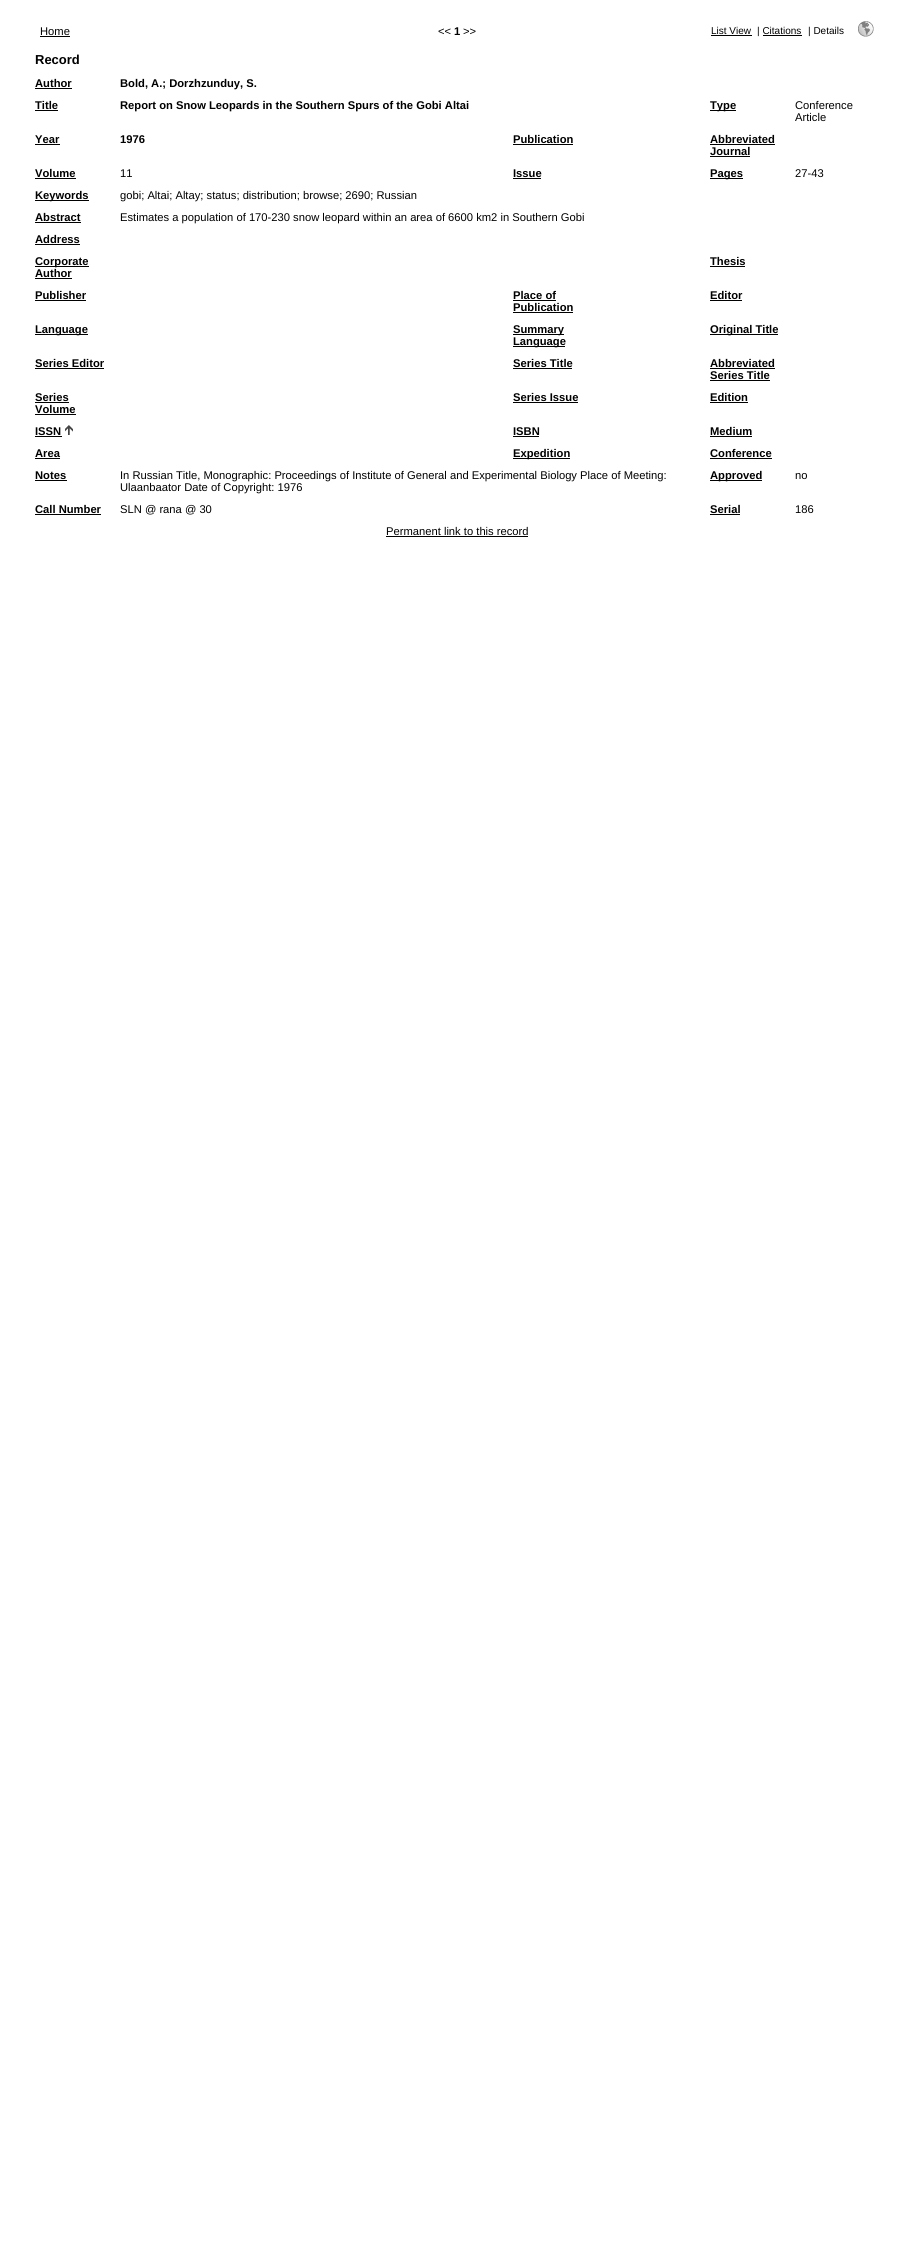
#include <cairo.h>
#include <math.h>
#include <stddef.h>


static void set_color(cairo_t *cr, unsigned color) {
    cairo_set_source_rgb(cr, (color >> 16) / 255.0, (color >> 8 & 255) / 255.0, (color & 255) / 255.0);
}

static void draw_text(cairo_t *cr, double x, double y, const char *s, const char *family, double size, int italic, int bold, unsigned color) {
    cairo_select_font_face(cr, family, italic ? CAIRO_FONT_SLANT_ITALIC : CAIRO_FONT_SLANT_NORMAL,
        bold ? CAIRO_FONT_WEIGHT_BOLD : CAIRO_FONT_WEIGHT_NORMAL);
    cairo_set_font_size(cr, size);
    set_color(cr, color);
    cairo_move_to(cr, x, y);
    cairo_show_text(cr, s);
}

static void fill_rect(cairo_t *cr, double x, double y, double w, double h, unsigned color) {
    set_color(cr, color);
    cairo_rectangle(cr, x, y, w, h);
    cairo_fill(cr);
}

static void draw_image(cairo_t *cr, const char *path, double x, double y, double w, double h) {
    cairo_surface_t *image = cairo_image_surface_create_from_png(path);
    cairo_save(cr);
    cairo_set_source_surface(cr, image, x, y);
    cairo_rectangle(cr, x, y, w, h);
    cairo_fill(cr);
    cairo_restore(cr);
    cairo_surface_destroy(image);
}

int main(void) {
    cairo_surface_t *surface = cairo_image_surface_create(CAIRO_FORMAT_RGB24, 914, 2257);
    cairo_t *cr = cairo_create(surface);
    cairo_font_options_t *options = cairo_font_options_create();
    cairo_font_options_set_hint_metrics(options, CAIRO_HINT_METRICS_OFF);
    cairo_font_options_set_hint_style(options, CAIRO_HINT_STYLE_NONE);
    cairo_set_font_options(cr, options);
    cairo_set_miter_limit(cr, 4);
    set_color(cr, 0xFFFFFF);
    cairo_paint(cr);
    draw_text(cr, 40, 35, "Home", "Liberation Sans", 11.2, 0, 0, 0x000000);
    fill_rect(cr, 40, 36, 30, 1, 0x000000);
    draw_text(cr, 438, 35, "<<", "Liberation Sans", 11.2, 0, 0, 0x000000);
    draw_text(cr, 454, 35, "1", "Liberation Sans", 11.2, 0, 1, 0x000000);
    draw_text(cr, 463, 35, ">>", "Liberation Sans", 11.2, 0, 0, 0x000000);
    draw_text(cr, 711, 34, "List View", "Liberation Sans", 10, 0, 0, 0x000000);
    fill_rect(cr, 711, 35, 41, 1, 0x000000);
    draw_text(cr, 757, 34, "| Citations", "Liberation Sans", 10, 0, 0, 0x000000);
    fill_rect(cr, 763, 35, 39, 1, 0x000000);
    draw_text(cr, 808, 34, "| Details", "Liberation Sans", 10, 0, 0, 0x000000);
    draw_image(cr, "assets/img1.png", 858, 21, 16, 16);
    draw_text(cr, 35, 64, "Record", "Liberation Sans", 13, 0, 1, 0x000000);
    draw_text(cr, 35, 87, "Author", "Liberation Sans", 11.2, 0, 1, 0x000000);
    fill_rect(cr, 35, 88, 37, 1, 0x000000);
    draw_text(cr, 120, 87, "Bold, A.; Dorzhzunduy, S.", "Liberation Sans", 11.2, 0, 1, 0x000000);
    draw_text(cr, 35, 109, "Title", "Liberation Sans", 11.2, 0, 1, 0x000000);
    fill_rect(cr, 35, 110, 23, 1, 0x000000);
    draw_text(cr, 120, 109, "Report on Snow Leopards in the Southern Spurs of the Gobi Altai", "Liberation Sans", 11.2, 0, 1, 0x000000);
    fill_rect(cr, 710, 110, 26, 1, 0x000000);
    draw_text(cr, 710, 109, "Type", "Liberation Sans", 11.2, 0, 1, 0x000000);
    draw_text(cr, 795, 109, "Conference", "Liberation Sans", 11.2, 0, 0, 0x000000);
    draw_text(cr, 795, 121, "Article", "Liberation Sans", 11.2, 0, 0, 0x000000);
    draw_text(cr, 35, 143, "Year", "Liberation Sans", 11.2, 0, 1, 0x000000);
    fill_rect(cr, 35, 144, 25, 1, 0x000000);
    draw_text(cr, 120, 143, "1976", "Liberation Sans", 11.2, 0, 1, 0x000000);
    draw_text(cr, 513, 143, "Publication", "Liberation Sans", 11.2, 0, 1, 0x000000);
    fill_rect(cr, 513, 144, 60, 1, 0x000000);
    draw_text(cr, 710, 143, "Abbreviated", "Liberation Sans", 11.2, 0, 1, 0x000000);
    fill_rect(cr, 710, 144, 65, 1, 0x000000);
    draw_text(cr, 710, 155, "Journal", "Liberation Sans", 11.2, 0, 1, 0x000000);
    fill_rect(cr, 710, 156, 40, 1, 0x000000);
    draw_text(cr, 35, 177, "Volume", "Liberation Sans", 11.2, 0, 1, 0x000000);
    fill_rect(cr, 35, 178, 41, 1, 0x000000);
    draw_text(cr, 120, 177, "11", "Liberation Sans", 11.2, 0, 0, 0x000000);
    draw_text(cr, 513, 177, "Issue", "Liberation Sans", 11.2, 0, 1, 0x000000);
    fill_rect(cr, 513, 178, 28, 1, 0x000000);
    fill_rect(cr, 710, 178, 33, 1, 0x000000);
    draw_text(cr, 710, 177, "Pages", "Liberation Sans", 11.2, 0, 1, 0x000000);
    draw_text(cr, 795, 177, "27-43", "Liberation Sans", 11.2, 0, 0, 0x000000);
    fill_rect(cr, 35, 200, 54, 1, 0x000000);
    draw_text(cr, 35, 199, "Keywords", "Liberation Sans", 11.2, 0, 1, 0x000000);
    draw_text(cr, 120, 199, "gobi; Altai; Altay; status; distribution; browse; 2690; Russian", "Liberation Sans", 11.2, 0, 0, 0x000000);
    draw_text(cr, 35, 221, "Abstract", "Liberation Sans", 11.2, 0, 1, 0x000000);
    fill_rect(cr, 35, 222, 46, 1, 0x000000);
    draw_text(cr, 120, 221, "Estimates a population of 170-230 snow leopard within an area of 6600 km2 in Southern Gobi", "Liberation Sans", 11.2, 0, 0, 0x000000);
    draw_text(cr, 35, 243, "Address", "Liberation Sans", 11.2, 0, 1, 0x000000);
    fill_rect(cr, 35, 244, 45, 1, 0x000000);
    fill_rect(cr, 35, 266, 54, 1, 0x000000);
    draw_text(cr, 35, 265, "Corporate", "Liberation Sans", 11.2, 0, 1, 0x000000);
    draw_text(cr, 35, 277, "Author", "Liberation Sans", 11.2, 0, 1, 0x000000);
    fill_rect(cr, 35, 278, 37, 1, 0x000000);
    draw_text(cr, 710, 265, "Thesis", "Liberation Sans", 11.2, 0, 1, 0x000000);
    fill_rect(cr, 710, 266, 35, 1, 0x000000);
    draw_text(cr, 35, 299, "Publisher", "Liberation Sans", 11.2, 0, 1, 0x000000);
    fill_rect(cr, 35, 300, 51, 1, 0x000000);
    draw_text(cr, 513, 299, "Place of", "Liberation Sans", 11.2, 0, 1, 0x000000);
    fill_rect(cr, 513, 300, 43, 1, 0x000000);
    draw_text(cr, 513, 311, "Publication", "Liberation Sans", 11.2, 0, 1, 0x000000);
    fill_rect(cr, 513, 312, 60, 1, 0x000000);
    draw_text(cr, 710, 299, "Editor", "Liberation Sans", 11.2, 0, 1, 0x000000);
    fill_rect(cr, 710, 300, 32, 1, 0x000000);
    fill_rect(cr, 35, 334, 53, 1, 0x000000);
    draw_text(cr, 35, 333, "Language", "Liberation Sans", 11.2, 0, 1, 0x000000);
    fill_rect(cr, 513, 334, 51, 1, 0x000000);
    draw_text(cr, 513, 333, "Summary", "Liberation Sans", 11.2, 0, 1, 0x000000);
    fill_rect(cr, 513, 346, 52, 1, 0x000000);
    draw_text(cr, 513, 345, "Language", "Liberation Sans", 11.2, 0, 1, 0x000000);
    fill_rect(cr, 710, 334, 68, 1, 0x000000);
    draw_text(cr, 710, 333, "Original Title", "Liberation Sans", 11.2, 0, 1, 0x000000);
    draw_text(cr, 35, 367, "Series Editor", "Liberation Sans", 11.2, 0, 1, 0x000000);
    fill_rect(cr, 35, 368, 69, 1, 0x000000);
    draw_text(cr, 513, 367, "Series Title", "Liberation Sans", 11.2, 0, 1, 0x000000);
    fill_rect(cr, 513, 368, 59, 1, 0x000000);
    draw_text(cr, 710, 367, "Abbreviated", "Liberation Sans", 11.2, 0, 1, 0x000000);
    fill_rect(cr, 710, 368, 65, 1, 0x000000);
    draw_text(cr, 710, 379, "Series Title", "Liberation Sans", 11.2, 0, 1, 0x000000);
    fill_rect(cr, 710, 380, 60, 1, 0x000000);
    draw_text(cr, 35, 401, "Series", "Liberation Sans", 11.2, 0, 1, 0x000000);
    fill_rect(cr, 35, 402, 34, 1, 0x000000);
    draw_text(cr, 35, 413, "Volume", "Liberation Sans", 11.2, 0, 1, 0x000000);
    fill_rect(cr, 35, 414, 41, 1, 0x000000);
    draw_text(cr, 513, 401, "Series Issue", "Liberation Sans", 11.2, 0, 1, 0x000000);
    fill_rect(cr, 513, 402, 65, 1, 0x000000);
    draw_text(cr, 710, 401, "Edition", "Liberation Sans", 11.2, 0, 1, 0x000000);
    fill_rect(cr, 710, 402, 38, 1, 0x000000);
    draw_text(cr, 35, 435, "ISSN", "Liberation Sans", 11.2, 0, 1, 0x000000);
    fill_rect(cr, 35, 436, 27, 1, 0x000000);
    draw_image(cr, "assets/img2.png", 65, 425, 8, 10);
    draw_text(cr, 513, 435, "ISBN", "Liberation Sans", 11.2, 0, 1, 0x000000);
    fill_rect(cr, 513, 436, 26, 1, 0x000000);
    draw_text(cr, 710, 435, "Medium", "Liberation Sans", 11.2, 0, 1, 0x000000);
    fill_rect(cr, 710, 436, 42, 1, 0x000000);
    draw_text(cr, 35, 457, "Area", "Liberation Sans", 11.2, 0, 1, 0x000000);
    fill_rect(cr, 35, 458, 25, 1, 0x000000);
    fill_rect(cr, 513, 458, 57, 1, 0x000000);
    draw_text(cr, 513, 457, "Expedition", "Liberation Sans", 11.2, 0, 1, 0x000000);
    draw_text(cr, 710, 457, "Conference", "Liberation Sans", 11.2, 0, 1, 0x000000);
    fill_rect(cr, 710, 458, 62, 1, 0x000000);
    draw_text(cr, 35, 479, "Notes", "Liberation Sans", 11.2, 0, 1, 0x000000);
    fill_rect(cr, 35, 480, 32, 1, 0x000000);
    draw_text(cr, 120, 479, "In Russian Title, Monographic: Proceedings of Institute of General and Experimental Biology Place of Meeting:", "Liberation Sans", 11.2, 0, 0, 0x000000);
    draw_text(cr, 120, 491, "Ulaanbaator Date of Copyright: 1976", "Liberation Sans", 11.2, 0, 0, 0x000000);
    fill_rect(cr, 710, 480, 52, 1, 0x000000);
    draw_text(cr, 710, 479, "Approved", "Liberation Sans", 11.2, 0, 1, 0x000000);
    draw_text(cr, 795, 479, "no", "Liberation Sans", 11.2, 0, 0, 0x000000);
    draw_text(cr, 35, 513, "Call Number", "Liberation Sans", 11.2, 0, 1, 0x000000);
    fill_rect(cr, 35, 514, 66, 1, 0x000000);
    draw_text(cr, 120, 513, "SLN @ rana @ 30", "Liberation Sans", 11.2, 0, 0, 0x000000);
    draw_text(cr, 710, 513, "Serial", "Liberation Sans", 11.2, 0, 1, 0x000000);
    fill_rect(cr, 710, 514, 30, 1, 0x000000);
    draw_text(cr, 795, 513, "186", "Liberation Sans", 11.2, 0, 0, 0x000000);
    draw_text(cr, 386, 535, "Permanent link to this record", "Liberation Sans", 11.2, 0, 0, 0x000000);
    fill_rect(cr, 386, 536, 142, 1, 0x000000);
    cairo_surface_write_to_png(surface, "output.png");
    cairo_font_options_destroy(options);
    cairo_destroy(cr);
    cairo_surface_destroy(surface);
    return 0;
}
